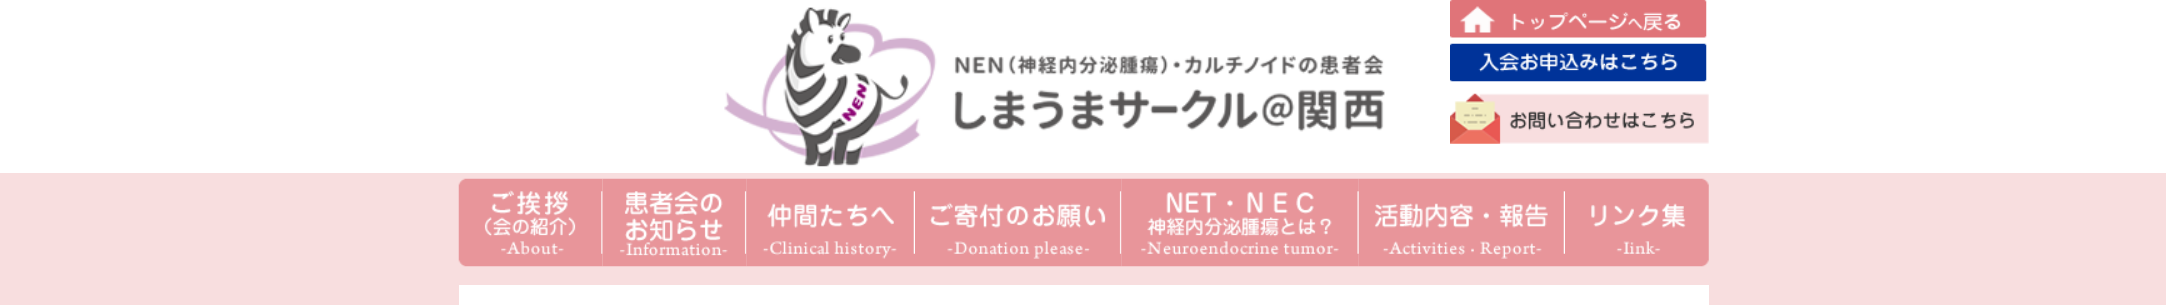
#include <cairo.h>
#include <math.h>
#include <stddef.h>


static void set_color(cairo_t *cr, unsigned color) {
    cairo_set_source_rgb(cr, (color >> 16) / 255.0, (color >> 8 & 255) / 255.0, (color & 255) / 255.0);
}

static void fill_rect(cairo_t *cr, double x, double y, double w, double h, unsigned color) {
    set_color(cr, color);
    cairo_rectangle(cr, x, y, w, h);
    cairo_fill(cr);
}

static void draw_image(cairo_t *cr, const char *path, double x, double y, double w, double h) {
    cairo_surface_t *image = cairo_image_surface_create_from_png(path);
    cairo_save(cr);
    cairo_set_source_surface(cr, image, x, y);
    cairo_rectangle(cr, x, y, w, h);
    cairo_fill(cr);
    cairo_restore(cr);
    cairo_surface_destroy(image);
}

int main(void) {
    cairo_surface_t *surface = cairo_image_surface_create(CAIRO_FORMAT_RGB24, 2166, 305);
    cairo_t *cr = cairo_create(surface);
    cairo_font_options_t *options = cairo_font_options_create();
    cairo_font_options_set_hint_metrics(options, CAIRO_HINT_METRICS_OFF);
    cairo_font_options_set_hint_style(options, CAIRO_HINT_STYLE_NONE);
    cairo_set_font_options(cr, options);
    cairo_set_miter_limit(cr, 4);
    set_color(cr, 0xFFFFFF);
    cairo_paint(cr);
    draw_image(cr, "assets/img1.png", 724, 7, 661, 160);
    draw_image(cr, "assets/img2.png", 1450, 0, 257, 38);
    draw_image(cr, "assets/img3.png", 1450, 43, 257, 39);
    draw_image(cr, "assets/img4.png", 1450, 93, 259, 51);
    fill_rect(cr, 0, 173, 2166, 132, 0xF8DEDF);
    draw_image(cr, "assets/img5.png", 458, 178, 145, 89);
    draw_image(cr, "assets/img6.png", 602, 178, 145, 89);
    draw_image(cr, "assets/img7.png", 746, 178, 169, 89);
    draw_image(cr, "assets/img8.png", 915, 178, 207, 89);
    draw_image(cr, "assets/img9.png", 1121, 178, 238, 89);
    draw_image(cr, "assets/img10.png", 1358, 178, 207, 89);
    draw_image(cr, "assets/img11.png", 1565, 178, 144, 89);
    fill_rect(cr, 459, 285, 1250, 20, 0xFFFFFF);
    cairo_surface_write_to_png(surface, "output.png");
    cairo_font_options_destroy(options);
    cairo_destroy(cr);
    cairo_surface_destroy(surface);
    return 0;
}
